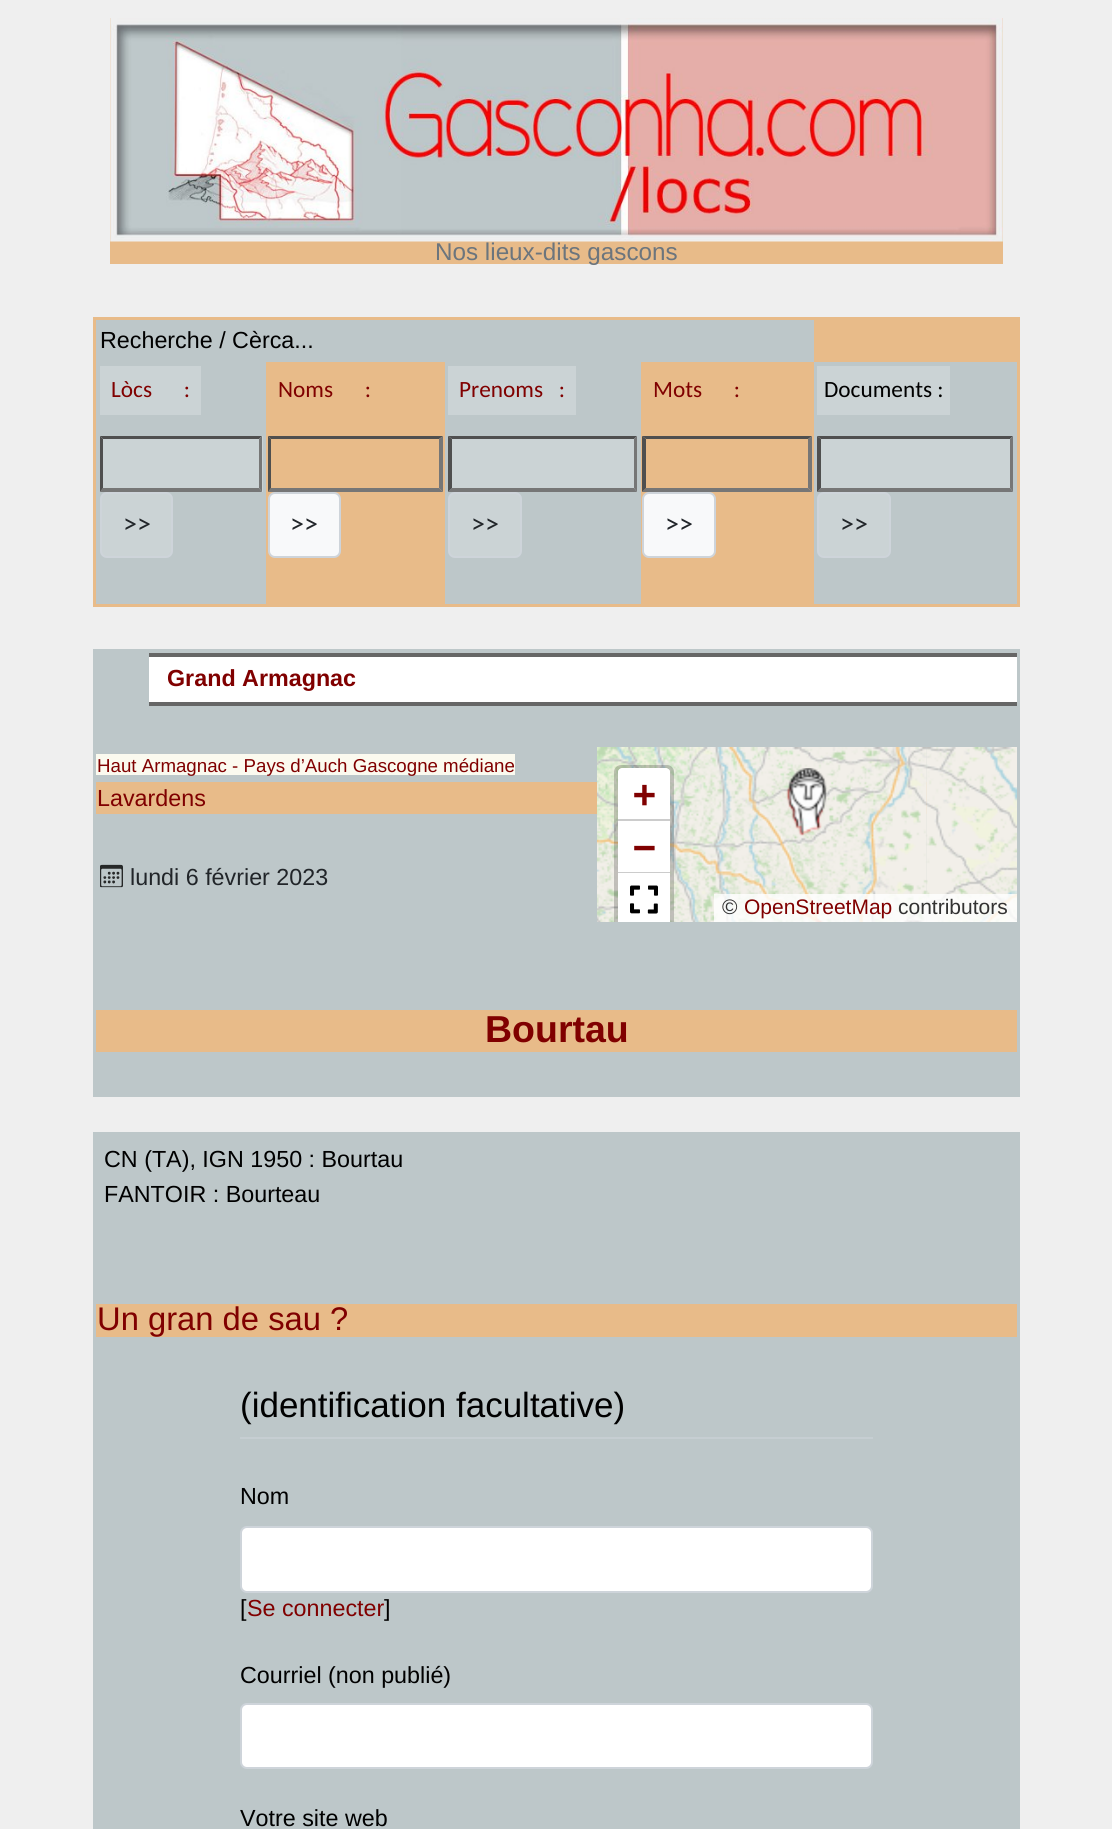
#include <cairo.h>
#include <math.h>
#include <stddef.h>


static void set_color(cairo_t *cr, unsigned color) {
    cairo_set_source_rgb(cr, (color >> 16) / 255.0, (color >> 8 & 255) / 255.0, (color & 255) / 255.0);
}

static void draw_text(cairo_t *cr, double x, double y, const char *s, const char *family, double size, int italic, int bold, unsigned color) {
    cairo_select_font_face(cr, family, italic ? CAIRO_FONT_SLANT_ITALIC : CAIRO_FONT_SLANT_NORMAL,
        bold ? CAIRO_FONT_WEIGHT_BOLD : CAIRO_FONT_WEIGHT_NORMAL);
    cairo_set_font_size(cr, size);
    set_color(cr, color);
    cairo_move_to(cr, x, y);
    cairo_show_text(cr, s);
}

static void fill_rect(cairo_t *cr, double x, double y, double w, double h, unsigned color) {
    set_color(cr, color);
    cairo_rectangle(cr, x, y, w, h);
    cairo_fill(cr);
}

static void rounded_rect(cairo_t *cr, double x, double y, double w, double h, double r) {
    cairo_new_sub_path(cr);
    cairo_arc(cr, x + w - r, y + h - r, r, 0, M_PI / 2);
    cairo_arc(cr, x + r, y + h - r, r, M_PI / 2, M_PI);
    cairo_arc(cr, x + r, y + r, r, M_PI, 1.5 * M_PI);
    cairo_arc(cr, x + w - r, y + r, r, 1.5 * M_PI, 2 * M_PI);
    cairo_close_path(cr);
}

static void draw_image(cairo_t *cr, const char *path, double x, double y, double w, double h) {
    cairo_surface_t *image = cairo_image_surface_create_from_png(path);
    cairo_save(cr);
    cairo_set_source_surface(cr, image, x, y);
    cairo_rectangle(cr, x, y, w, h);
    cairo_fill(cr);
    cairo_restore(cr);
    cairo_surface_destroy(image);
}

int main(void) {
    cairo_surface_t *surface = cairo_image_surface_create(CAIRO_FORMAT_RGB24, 1112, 1829);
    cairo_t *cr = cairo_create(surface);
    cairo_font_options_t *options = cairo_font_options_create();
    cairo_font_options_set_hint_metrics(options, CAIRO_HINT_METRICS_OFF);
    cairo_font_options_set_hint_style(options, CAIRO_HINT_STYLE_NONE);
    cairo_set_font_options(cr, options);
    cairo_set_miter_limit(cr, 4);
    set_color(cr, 0xEFEFEF);
    cairo_paint(cr);
    fill_rect(cr, 110, 18, 893, 246, 0xE8BB89);
    draw_image(cr, "assets/img1.png", 110, 18, 893, 224);
    draw_text(cr, 435, 260, "Nos lieux-dits gascons", "Liberation Sans", 24.25, 0, 0, 0x6C757D);
    fill_rect(cr, 93, 317, 927, 290, 0xE8BB89);
    fill_rect(cr, 96, 320, 718, 42, 0xBDC7C9);
    draw_text(cr, 100, 348, "Recherche / Cèrca...", "Liberation Sans", 23.3, 0, 0, 0x000000);
    fill_rect(cr, 96, 362, 170, 242, 0xBDC7C9);
    fill_rect(cr, 100, 366, 101, 49, 0xCBD3D5);
    draw_text(cr, 111, 397, "Lòcs      :", "Carlito", 23.3, 0, 0, 0x800000);
    fill_rect(cr, 100, 436, 163, 56, 0xCBD3D5);
    set_color(cr, 0x4F4F4F);
    cairo_new_path(cr);
    cairo_move_to(cr, 100, 436);
    cairo_line_to(cr, 262, 436);
    cairo_line_to(cr, 259, 439);
    cairo_line_to(cr, 103, 439);
    cairo_close_path(cr);
    cairo_fill(cr);
    set_color(cr, 0x767676);
    cairo_new_path(cr);
    cairo_move_to(cr, 262, 436);
    cairo_line_to(cr, 262, 492);
    cairo_line_to(cr, 259, 488);
    cairo_line_to(cr, 259, 439);
    cairo_close_path(cr);
    cairo_fill(cr);
    cairo_new_path(cr);
    cairo_move_to(cr, 262, 492);
    cairo_line_to(cr, 100, 492);
    cairo_line_to(cr, 103, 488);
    cairo_line_to(cr, 259, 488);
    cairo_close_path(cr);
    cairo_fill(cr);
    set_color(cr, 0x4F4F4F);
    cairo_new_path(cr);
    cairo_move_to(cr, 100, 492);
    cairo_line_to(cr, 100, 436);
    cairo_line_to(cr, 103, 439);
    cairo_line_to(cr, 103, 488);
    cairo_close_path(cr);
    cairo_fill(cr);
    set_color(cr, 0xCBD3D5);
    rounded_rect(cr, 101, 493, 71, 64, 6);
    cairo_fill_preserve(cr);
    set_color(cr, 0xCED4DA);
    cairo_stroke(cr);
    draw_text(cr, 123, 533, ">>", "Carlito", 28, 0, 0, 0x212529);
    draw_text(cr, 278, 397, "Noms      :", "Carlito", 23.3, 0, 0, 0x800000);
    set_color(cr, 0x4F4F4F);
    cairo_new_path(cr);
    cairo_move_to(cr, 268, 436);
    cairo_line_to(cr, 443, 436);
    cairo_line_to(cr, 439, 439);
    cairo_line_to(cr, 271, 439);
    cairo_close_path(cr);
    cairo_fill(cr);
    set_color(cr, 0x767676);
    cairo_new_path(cr);
    cairo_move_to(cr, 443, 436);
    cairo_line_to(cr, 443, 492);
    cairo_line_to(cr, 439, 488);
    cairo_line_to(cr, 439, 439);
    cairo_close_path(cr);
    cairo_fill(cr);
    cairo_new_path(cr);
    cairo_move_to(cr, 443, 492);
    cairo_line_to(cr, 268, 492);
    cairo_line_to(cr, 271, 488);
    cairo_line_to(cr, 439, 488);
    cairo_close_path(cr);
    cairo_fill(cr);
    set_color(cr, 0x4F4F4F);
    cairo_new_path(cr);
    cairo_move_to(cr, 268, 492);
    cairo_line_to(cr, 268, 436);
    cairo_line_to(cr, 271, 439);
    cairo_line_to(cr, 271, 488);
    cairo_close_path(cr);
    cairo_fill(cr);
    set_color(cr, 0xF8F9FA);
    rounded_rect(cr, 269, 493, 71, 64, 6);
    cairo_fill_preserve(cr);
    set_color(cr, 0xCED4DA);
    cairo_stroke(cr);
    draw_text(cr, 290, 533, ">>", "Carlito", 28, 0, 0, 0x212529);
    fill_rect(cr, 445, 362, 196, 242, 0xBDC7C9);
    fill_rect(cr, 448, 366, 128, 49, 0xCBD3D5);
    draw_text(cr, 459, 397, "Prenoms   :", "Carlito", 23.3, 0, 0, 0x800000);
    fill_rect(cr, 448, 436, 189, 56, 0xCBD3D5);
    set_color(cr, 0x4F4F4F);
    cairo_new_path(cr);
    cairo_move_to(cr, 448, 436);
    cairo_line_to(cr, 637, 436);
    cairo_line_to(cr, 634, 439);
    cairo_line_to(cr, 452, 439);
    cairo_close_path(cr);
    cairo_fill(cr);
    set_color(cr, 0x767676);
    cairo_new_path(cr);
    cairo_move_to(cr, 637, 436);
    cairo_line_to(cr, 637, 492);
    cairo_line_to(cr, 634, 488);
    cairo_line_to(cr, 634, 439);
    cairo_close_path(cr);
    cairo_fill(cr);
    cairo_new_path(cr);
    cairo_move_to(cr, 637, 492);
    cairo_line_to(cr, 448, 492);
    cairo_line_to(cr, 452, 488);
    cairo_line_to(cr, 634, 488);
    cairo_close_path(cr);
    cairo_fill(cr);
    set_color(cr, 0x4F4F4F);
    cairo_new_path(cr);
    cairo_move_to(cr, 448, 492);
    cairo_line_to(cr, 448, 436);
    cairo_line_to(cr, 452, 439);
    cairo_line_to(cr, 452, 488);
    cairo_close_path(cr);
    cairo_fill(cr);
    set_color(cr, 0xCBD3D5);
    rounded_rect(cr, 449, 493, 72, 64, 6);
    cairo_fill_preserve(cr);
    set_color(cr, 0xCED4DA);
    cairo_stroke(cr);
    draw_text(cr, 471, 533, ">>", "Carlito", 28, 0, 0, 0x212529);
    draw_text(cr, 653, 397, "Mots      :", "Carlito", 23.3, 0, 0, 0x800000);
    set_color(cr, 0x4F4F4F);
    cairo_new_path(cr);
    cairo_move_to(cr, 642, 436);
    cairo_line_to(cr, 812, 436);
    cairo_line_to(cr, 808, 439);
    cairo_line_to(cr, 646, 439);
    cairo_close_path(cr);
    cairo_fill(cr);
    set_color(cr, 0x767676);
    cairo_new_path(cr);
    cairo_move_to(cr, 812, 436);
    cairo_line_to(cr, 812, 492);
    cairo_line_to(cr, 808, 488);
    cairo_line_to(cr, 808, 439);
    cairo_close_path(cr);
    cairo_fill(cr);
    cairo_new_path(cr);
    cairo_move_to(cr, 812, 492);
    cairo_line_to(cr, 642, 492);
    cairo_line_to(cr, 646, 488);
    cairo_line_to(cr, 808, 488);
    cairo_close_path(cr);
    cairo_fill(cr);
    set_color(cr, 0x4F4F4F);
    cairo_new_path(cr);
    cairo_move_to(cr, 642, 492);
    cairo_line_to(cr, 642, 436);
    cairo_line_to(cr, 646, 439);
    cairo_line_to(cr, 646, 488);
    cairo_close_path(cr);
    cairo_fill(cr);
    set_color(cr, 0xF8F9FA);
    rounded_rect(cr, 643, 493, 72, 64, 6);
    cairo_fill_preserve(cr);
    set_color(cr, 0xCED4DA);
    cairo_stroke(cr);
    draw_text(cr, 665, 533, ">>", "Carlito", 28, 0, 0, 0x212529);
    fill_rect(cr, 814, 362, 203, 242, 0xBDC7C9);
    fill_rect(cr, 817, 366, 133, 49, 0xCBD3D5);
    draw_text(cr, 824, 397, "Documents :", "Carlito", 23.3, 0, 0, 0x000000);
    fill_rect(cr, 817, 436, 196, 56, 0xCBD3D5);
    set_color(cr, 0x4F4F4F);
    cairo_new_path(cr);
    cairo_move_to(cr, 817, 436);
    cairo_line_to(cr, 1013, 436);
    cairo_line_to(cr, 1010, 439);
    cairo_line_to(cr, 821, 439);
    cairo_close_path(cr);
    cairo_fill(cr);
    set_color(cr, 0x767676);
    cairo_new_path(cr);
    cairo_move_to(cr, 1013, 436);
    cairo_line_to(cr, 1013, 492);
    cairo_line_to(cr, 1010, 488);
    cairo_line_to(cr, 1010, 439);
    cairo_close_path(cr);
    cairo_fill(cr);
    cairo_new_path(cr);
    cairo_move_to(cr, 1013, 492);
    cairo_line_to(cr, 817, 492);
    cairo_line_to(cr, 821, 488);
    cairo_line_to(cr, 1010, 488);
    cairo_close_path(cr);
    cairo_fill(cr);
    set_color(cr, 0x4F4F4F);
    cairo_new_path(cr);
    cairo_move_to(cr, 817, 492);
    cairo_line_to(cr, 817, 436);
    cairo_line_to(cr, 821, 439);
    cairo_line_to(cr, 821, 488);
    cairo_close_path(cr);
    cairo_fill(cr);
    set_color(cr, 0xCBD3D5);
    rounded_rect(cr, 818, 493, 72, 64, 6);
    cairo_fill_preserve(cr);
    set_color(cr, 0xCED4DA);
    cairo_stroke(cr);
    draw_text(cr, 840, 533, ">>", "Carlito", 28, 0, 0, 0x212529);
    fill_rect(cr, 93, 649, 927, 448, 0xBDC7C9);
    fill_rect(cr, 149, 657, 868, 45, 0xFFFFFF);
    fill_rect(cr, 149, 653, 868, 4, 0x666666);
    fill_rect(cr, 149, 702, 868, 4, 0x666666);
    draw_text(cr, 167, 686, "Grand Armagnac", "Liberation Sans", 23.3, 0, 1, 0x800000);
    fill_rect(cr, 96, 754, 419, 21, 0xFBFAEF);
    draw_text(cr, 97, 772, "Haut Armagnac - Pays d’Auch Gascogne médiane", "Liberation Sans", 18.7, 0, 0, 0x800000);
    fill_rect(cr, 96, 782, 831, 32, 0xE8BB89);
    draw_text(cr, 97, 806, "Lavardens", "Liberation Sans", 23.3, 0, 0, 0x800000);
    draw_image(cr, "assets/img2.png", 597, 747, 329, 175);
    draw_image(cr, "assets/img3.png", 925, 747, 92, 175);
    draw_image(cr, "assets/img4.png", 786, 768, 41, 68);
    cairo_save(cr);
    cairo_rectangle(cr, 597, 747, 420, 175);
    cairo_clip(cr);
    rounded_rect(cr, 616, 767, 56, 160, 5);
    cairo_set_source_rgba(cr, 0, 0, 0, 0.2);
    cairo_set_line_width(cr, 4);
    cairo_stroke(cr);
    cairo_restore(cr);
    set_color(cr, 0xFFFFFF);
    cairo_new_path(cr);
    cairo_move_to(cr, 622, 768);
    cairo_line_to(cr, 666, 768);
    cairo_curve_to(cr, 668, 768, 670, 770, 670, 772);
    cairo_line_to(cr, 670, 821);
    cairo_line_to(cr, 618, 821);
    cairo_line_to(cr, 618, 772);
    cairo_curve_to(cr, 618, 770, 620, 768, 622, 768);
    cairo_close_path(cr);
    cairo_fill(cr);
    fill_rect(cr, 618, 819, 52, 2, 0xCCCCCC);
    draw_text(cr, 633, 807, "+", "DejaVu Sans Mono", 38, 0, 1, 0x800000);
    fill_rect(cr, 618, 821, 52, 51, 0xFFFFFF);
    fill_rect(cr, 618, 872, 52, 1, 0xCCCCCC);
    draw_text(cr, 633, 860, "−", "DejaVu Sans Mono", 38, 0, 1, 0x800000);
    fill_rect(cr, 618, 873, 52, 49, 0xFFFFFF);
    draw_image(cr, "assets/img5.png", 630, 885, 28, 29);
    cairo_set_source_rgba(cr, 1, 1, 1, 0.8);
    cairo_rectangle(cr, 714, 894, 303, 28);
    cairo_fill(cr);
    draw_text(cr, 722, 914, "©", "Liberation Sans", 21, 0, 0, 0x333333);
    draw_text(cr, 744, 914, "OpenStreetMap", "Liberation Sans", 21, 0, 0, 0x800000);
    draw_text(cr, 898, 914, "contributors", "Liberation Sans", 21, 0, 0, 0x333333);
    draw_image(cr, "assets/img6.png", 100, 864, 23, 24);
    draw_text(cr, 130, 885, "lundi 6 février 2023", "Liberation Sans", 23.3, 0, 0, 0x212529);
    fill_rect(cr, 96, 1010, 921, 42, 0xE8BB89);
    draw_text(cr, 485, 1042, "Bourtau", "Liberation Sans", 37.5, 0, 1, 0x800000);
    fill_rect(cr, 93, 1132, 927, 697, 0xBDC7C9);
    draw_text(cr, 104, 1167, "CN (TA), IGN 1950 : Bourtau", "Liberation Sans", 23.3, 0, 0, 0x000000);
    draw_text(cr, 104, 1202, "FANTOIR : Bourteau", "Liberation Sans", 23.3, 0, 0, 0x000000);
    fill_rect(cr, 96, 1304, 921, 33, 0xE8BB89);
    draw_text(cr, 97, 1330, "Un gran de sau ?", "Liberation Sans", 32.75, 0, 0, 0x800000);
    fill_rect(cr, 240, 1437, 633, 2, 0xC6CED2);
    draw_text(cr, 240, 1417, "(identification facultative)", "Liberation Sans", 35, 0, 0, 0x000000);
    draw_text(cr, 240, 1504, "Nom", "Liberation Sans", 23.3, 0, 0, 0x000000);
    set_color(cr, 0xFFFFFF);
    rounded_rect(cr, 241, 1527, 631, 65, 6);
    cairo_fill_preserve(cr);
    set_color(cr, 0xCED4DA);
    cairo_stroke(cr);
    draw_text(cr, 240, 1616, "[", "Liberation Sans", 23.3, 0, 0, 0x000000);
    draw_text(cr, 247, 1616, "Se connecter", "Liberation Sans", 23.3, 0, 0, 0x800000);
    draw_text(cr, 384, 1616, "]", "Liberation Sans", 23.3, 0, 0, 0x000000);
    draw_text(cr, 240, 1683, "Courriel (non publié)", "Liberation Sans", 23.3, 0, 0, 0x000000);
    set_color(cr, 0xFFFFFF);
    rounded_rect(cr, 241, 1704, 631, 64, 6);
    cairo_fill_preserve(cr);
    set_color(cr, 0xCED4DA);
    cairo_stroke(cr);
    draw_text(cr, 240, 1826, "Votre site web", "Liberation Sans", 23.3, 0, 0, 0x000000);
    cairo_surface_write_to_png(surface, "output.png");
    cairo_font_options_destroy(options);
    cairo_destroy(cr);
    cairo_surface_destroy(surface);
    return 0;
}
